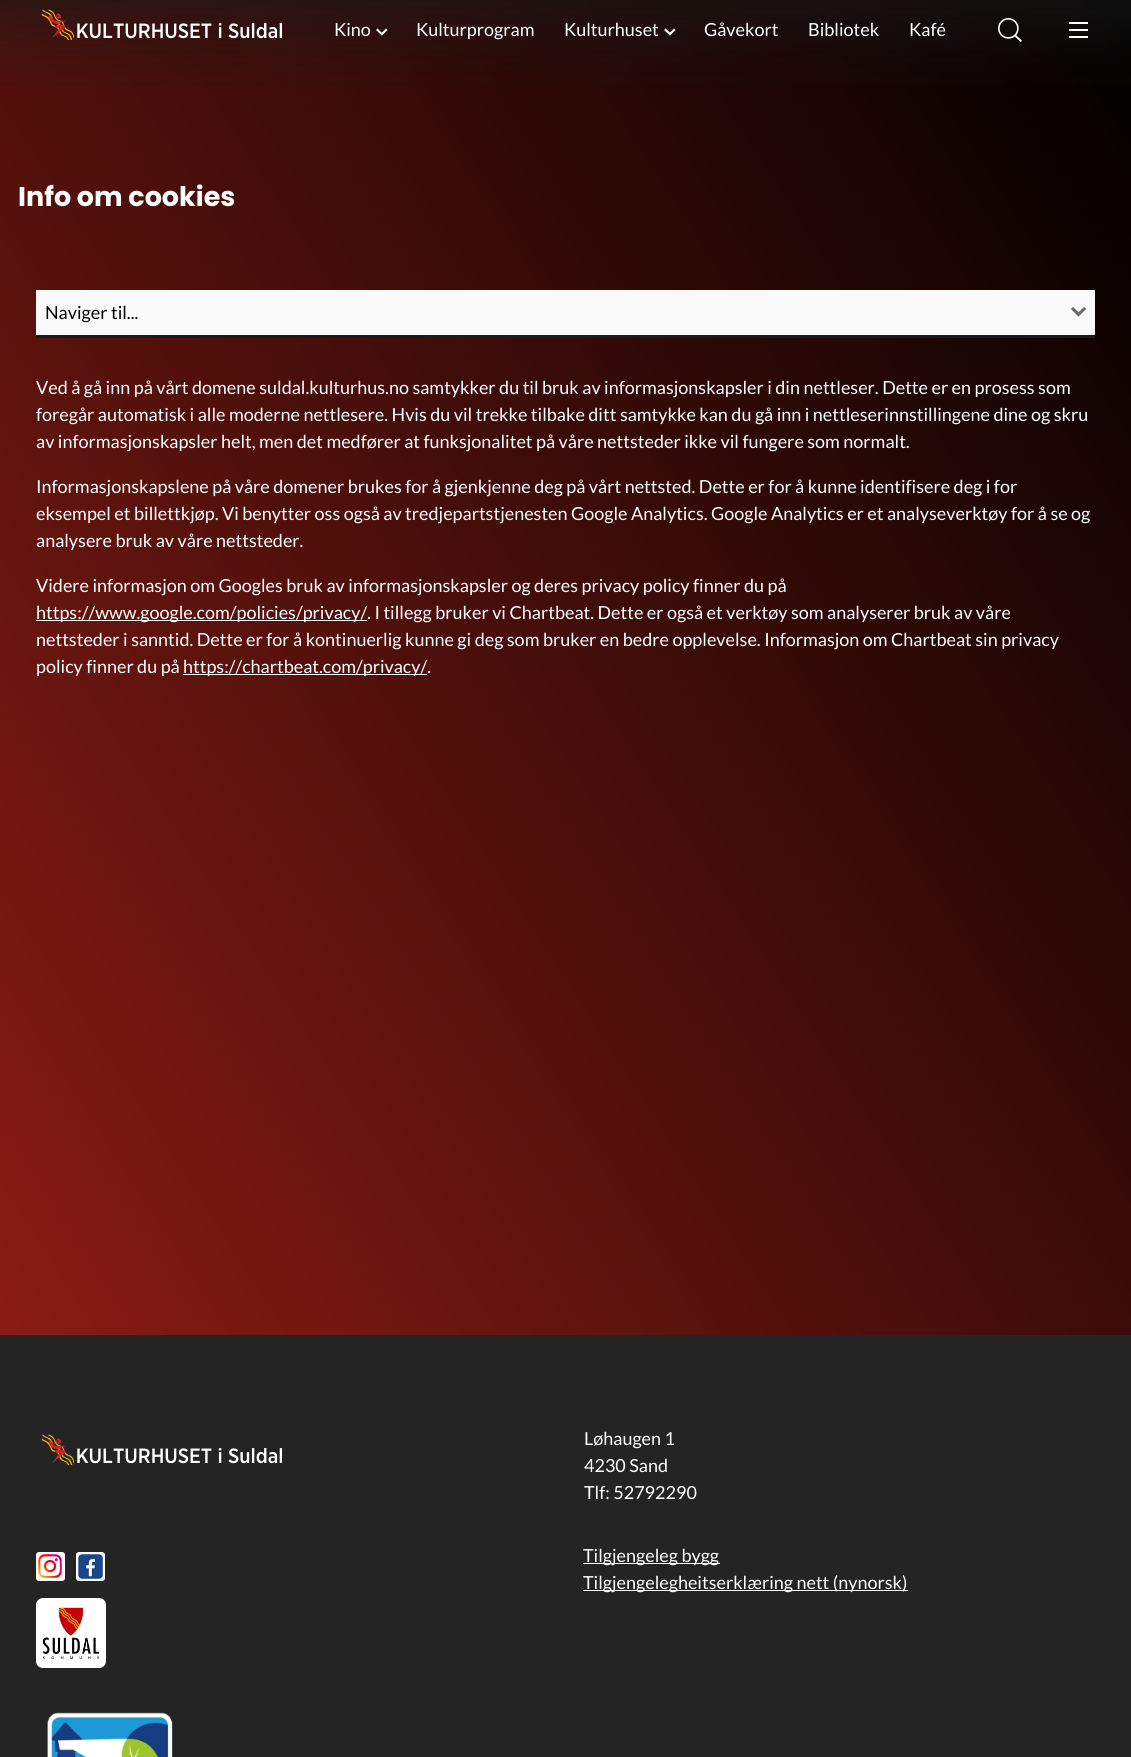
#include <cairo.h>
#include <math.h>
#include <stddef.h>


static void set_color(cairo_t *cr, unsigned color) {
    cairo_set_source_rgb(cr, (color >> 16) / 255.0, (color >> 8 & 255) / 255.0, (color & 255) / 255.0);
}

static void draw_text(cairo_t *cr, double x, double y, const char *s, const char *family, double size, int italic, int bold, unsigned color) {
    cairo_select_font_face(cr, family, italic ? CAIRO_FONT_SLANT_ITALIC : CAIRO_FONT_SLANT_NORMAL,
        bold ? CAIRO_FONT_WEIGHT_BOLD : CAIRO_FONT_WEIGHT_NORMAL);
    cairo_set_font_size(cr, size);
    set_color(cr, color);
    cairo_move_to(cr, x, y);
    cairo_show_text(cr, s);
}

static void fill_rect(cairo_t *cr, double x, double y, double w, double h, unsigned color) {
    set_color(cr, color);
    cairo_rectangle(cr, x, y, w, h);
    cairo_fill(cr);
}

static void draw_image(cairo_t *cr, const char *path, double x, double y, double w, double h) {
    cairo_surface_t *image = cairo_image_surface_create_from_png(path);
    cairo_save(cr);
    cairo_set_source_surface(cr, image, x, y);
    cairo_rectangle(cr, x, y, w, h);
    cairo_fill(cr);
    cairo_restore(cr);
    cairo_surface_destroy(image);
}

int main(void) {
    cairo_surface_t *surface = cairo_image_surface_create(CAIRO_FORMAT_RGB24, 1131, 1757);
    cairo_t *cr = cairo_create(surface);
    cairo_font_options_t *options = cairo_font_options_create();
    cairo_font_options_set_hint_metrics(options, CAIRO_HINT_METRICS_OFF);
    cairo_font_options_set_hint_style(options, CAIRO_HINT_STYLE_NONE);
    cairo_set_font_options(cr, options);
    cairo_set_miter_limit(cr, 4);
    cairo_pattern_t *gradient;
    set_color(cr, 0xFFFFFF);
    cairo_paint(cr);
    gradient = cairo_pattern_create_linear(-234, 1393, 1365, 364);
    cairo_pattern_add_color_stop_rgba(gradient, 0, 0.612, 0.122, 0.09, 1);
    cairo_pattern_add_color_stop_rgba(gradient, 1, 0, 0, 0, 1);
    cairo_set_source(cr, gradient);
    cairo_pattern_destroy(gradient);
    cairo_rectangle(cr, 0, 0, 1131, 1335);
    cairo_fill(cr);
    gradient = cairo_pattern_create_linear(566, 105, 566, -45);
    cairo_pattern_add_color_stop_rgba(gradient, 0, 0.102, 0.102, 0.102, 0);
    cairo_pattern_add_color_stop_rgba(gradient, 0.1, 0.102, 0.102, 0.102, 0.03);
    cairo_pattern_add_color_stop_rgba(gradient, 0.18, 0.102, 0.102, 0.102, 0.07);
    cairo_pattern_add_color_stop_rgba(gradient, 0.25, 0.102, 0.102, 0.102, 0.11);
    cairo_pattern_add_color_stop_rgba(gradient, 0.32, 0.102, 0.102, 0.102, 0.17);
    cairo_pattern_add_color_stop_rgba(gradient, 0.38, 0.102, 0.102, 0.102, 0.22);
    cairo_pattern_add_color_stop_rgba(gradient, 0.43, 0.102, 0.102, 0.102, 0.28);
    cairo_pattern_add_color_stop_rgba(gradient, 0.49, 0.102, 0.102, 0.102, 0.33);
    cairo_pattern_add_color_stop_rgba(gradient, 0.54, 0.102, 0.102, 0.102, 0.39);
    cairo_pattern_add_color_stop_rgba(gradient, 0.59, 0.102, 0.102, 0.102, 0.45);
    cairo_pattern_add_color_stop_rgba(gradient, 0.64, 0.102, 0.102, 0.102, 0.51);
    cairo_pattern_add_color_stop_rgba(gradient, 0.7, 0.102, 0.102, 0.102, 0.56);
    cairo_pattern_add_color_stop_rgba(gradient, 0.76, 0.102, 0.102, 0.102, 0.62);
    cairo_pattern_add_color_stop_rgba(gradient, 0.83, 0.102, 0.102, 0.102, 0.66);
    cairo_pattern_add_color_stop_rgba(gradient, 0.91, 0.102, 0.102, 0.102, 0.71);
    cairo_pattern_add_color_stop_rgba(gradient, 1, 0.102, 0.102, 0.102, 0.74);
    cairo_set_source(cr, gradient);
    cairo_pattern_destroy(gradient);
    cairo_rectangle(cr, 0, 0, 1131, 85);
    cairo_fill(cr);
    draw_image(cr, "assets/img1.png", 41, 9, 242, 31);
    draw_text(cr, 334, 36, "Kino", "Lato", 18, 0, 0, 0xFFFFFF);
    cairo_new_path(cr);
    cairo_move_to(cr, 386, 28.5);
    cairo_line_to(cr, 387.5, 30);
    cairo_line_to(cr, 382, 35.5);
    cairo_line_to(cr, 380.5, 34);
    cairo_close_path(cr);
    cairo_fill(cr);
    cairo_new_path(cr);
    cairo_move_to(cr, 377.5, 28.5);
    cairo_line_to(cr, 383, 34);
    cairo_line_to(cr, 382, 35.5);
    cairo_line_to(cr, 376, 30);
    cairo_close_path(cr);
    cairo_fill(cr);
    draw_text(cr, 416, 36, "Kulturprogram", "Lato", 18, 0, 0, 0xFFFFFF);
    draw_text(cr, 564, 36, "Kulturhuset", "Lato", 18, 0, 0, 0xFFFFFF);
    cairo_new_path(cr);
    cairo_move_to(cr, 674, 28.5);
    cairo_line_to(cr, 675.5, 30);
    cairo_line_to(cr, 670, 35.5);
    cairo_line_to(cr, 668.5, 34);
    cairo_close_path(cr);
    cairo_fill(cr);
    cairo_new_path(cr);
    cairo_move_to(cr, 665.5, 28.5);
    cairo_line_to(cr, 671.5, 34);
    cairo_line_to(cr, 670, 35.5);
    cairo_line_to(cr, 664, 30);
    cairo_close_path(cr);
    cairo_fill(cr);
    draw_text(cr, 704, 36, "Gåvekort", "Lato", 18, 0, 0, 0xFFFFFF);
    draw_text(cr, 808, 36, "Bibliotek", "Lato", 18, 0, 0, 0xFFFFFF);
    draw_text(cr, 909, 36, "Kafé", "Lato", 18, 0, 0, 0xFFFFFF);
    draw_image(cr, "assets/img2.png", 998, 18, 24, 24);
    fill_rect(cr, 1069, 22, 19, 2, 0xFFFFFF);
    fill_rect(cr, 1069, 29, 19, 2, 0xFFFFFF);
    fill_rect(cr, 1069, 36, 19, 2, 0xFFFFFF);
    draw_text(cr, 18, 206, "Info om cookies", "Poppins", 27, 0, 1, 0xFFFFFF);
    fill_rect(cr, 36, 290, 1059, 45, 0xFAFAFA);
    fill_rect(cr, 36, 335, 1059, 3, 0x1A1A1A);
    draw_text(cr, 45, 319, "Naviger til...", "Lato", 18, 0, 0, 0x000000);
    cairo_new_path(cr);
    cairo_move_to(cr, 1073, 309);
    cairo_line_to(cr, 1078.5, 314.5);
    cairo_move_to(cr, 1084, 309);
    cairo_line_to(cr, 1078.5, 314.5);
    set_color(cr, 0x696969);
    cairo_set_line_width(cr, 3);
    cairo_set_line_cap(cr, CAIRO_LINE_CAP_SQUARE);
    cairo_stroke(cr);
    draw_text(cr, 36, 394, "Ved å gå inn på vårt domene suldal.kulturhus.no samtykker du til bruk av informasjonskapsler i din nettleser. Dette er en prosess som", "Lato", 18, 0, 0, 0xFFFFFF);
    draw_text(cr, 36, 421, "foregår automatisk i alle moderne nettlesere. Hvis du vil trekke tilbake ditt samtykke kan du gå inn i nettleserinnstillingene dine og skru", "Lato", 18, 0, 0, 0xFFFFFF);
    draw_text(cr, 36, 448, "av informasjonskapsler helt, men det medfører at funksjonalitet på våre nettsteder ikke vil fungere som normalt.", "Lato", 18, 0, 0, 0xFFFFFF);
    draw_text(cr, 36, 493, "Informasjonskapslene på våre domener brukes for å gjenkjenne deg på vårt nettsted. Dette er for å kunne identifisere deg i for", "Lato", 18, 0, 0, 0xFFFFFF);
    draw_text(cr, 36, 520, "eksempel et billettkjøp. Vi benytter oss også av tredjepartstjenesten Google Analytics. Google Analytics er et analyseverktøy for å se og", "Lato", 18, 0, 0, 0xFFFFFF);
    draw_text(cr, 36, 547, "analysere bruk av våre nettsteder.", "Lato", 18, 0, 0, 0xFFFFFF);
    draw_text(cr, 36, 592, "Videre informasjon om Googles bruk av informasjonskapsler og deres privacy policy finner du på", "Lato", 18, 0, 0, 0xFFFFFF);
    fill_rect(cr, 36, 620, 331, 1, 0xFFFFFF);
    draw_text(cr, 36, 619, "https://www.google.com/policies/privacy/. I tillegg bruker vi Chartbeat. Dette er også et verktøy som analyserer bruk av våre", "Lato", 18, 0, 0, 0xFFFFFF);
    draw_text(cr, 36, 646, "nettsteder i sanntid. Dette er for å kontinuerlig kunne gi deg som bruker en bedre opplevelse. Informasjon om Chartbeat sin privacy", "Lato", 18, 0, 0, 0xFFFFFF);
    draw_text(cr, 36, 673, "policy finner du på", "Lato", 18, 0, 0, 0xFFFFFF);
    fill_rect(cr, 183, 674, 244, 1, 0xFFFFFF);
    draw_text(cr, 183, 673, "https://chartbeat.com/privacy/.", "Lato", 18, 0, 0, 0xFFFFFF);
    fill_rect(cr, 0, 1335, 1131, 422, 0x242424);
    draw_image(cr, "assets/img3.png", 41, 1434, 242, 31);
    draw_text(cr, 584, 1445, "Løhaugen 1", "Lato", 18, 0, 0, 0xFFFFFF);
    draw_text(cr, 584, 1472, "4230 Sand", "Lato", 18, 0, 0, 0xFFFFFF);
    draw_text(cr, 584, 1499, "Tlf: 52792290", "Lato", 18, 0, 0, 0xFFFFFF);
    draw_image(cr, "assets/img4.png", 36, 1552, 29, 29);
    draw_image(cr, "assets/img5.png", 76, 1552, 29, 29);
    draw_image(cr, "assets/img6.png", 36, 1598, 70, 70);
    fill_rect(cr, 583, 1563, 137, 1, 0xFFFFFF);
    draw_text(cr, 583, 1562, "Tilgjengeleg bygg", "Lato", 18, 0, 0, 0xFFFFFF);
    fill_rect(cr, 583, 1590, 325, 1, 0xFFFFFF);
    draw_text(cr, 583, 1589, "Tilgjengelegheitserklæring nett (nynorsk)", "Lato", 18, 0, 0, 0xFFFFFF);
    draw_image(cr, "assets/img7.png", 47, 1712, 126, 45);
    cairo_surface_write_to_png(surface, "output.png");
    cairo_font_options_destroy(options);
    cairo_destroy(cr);
    cairo_surface_destroy(surface);
    return 0;
}
